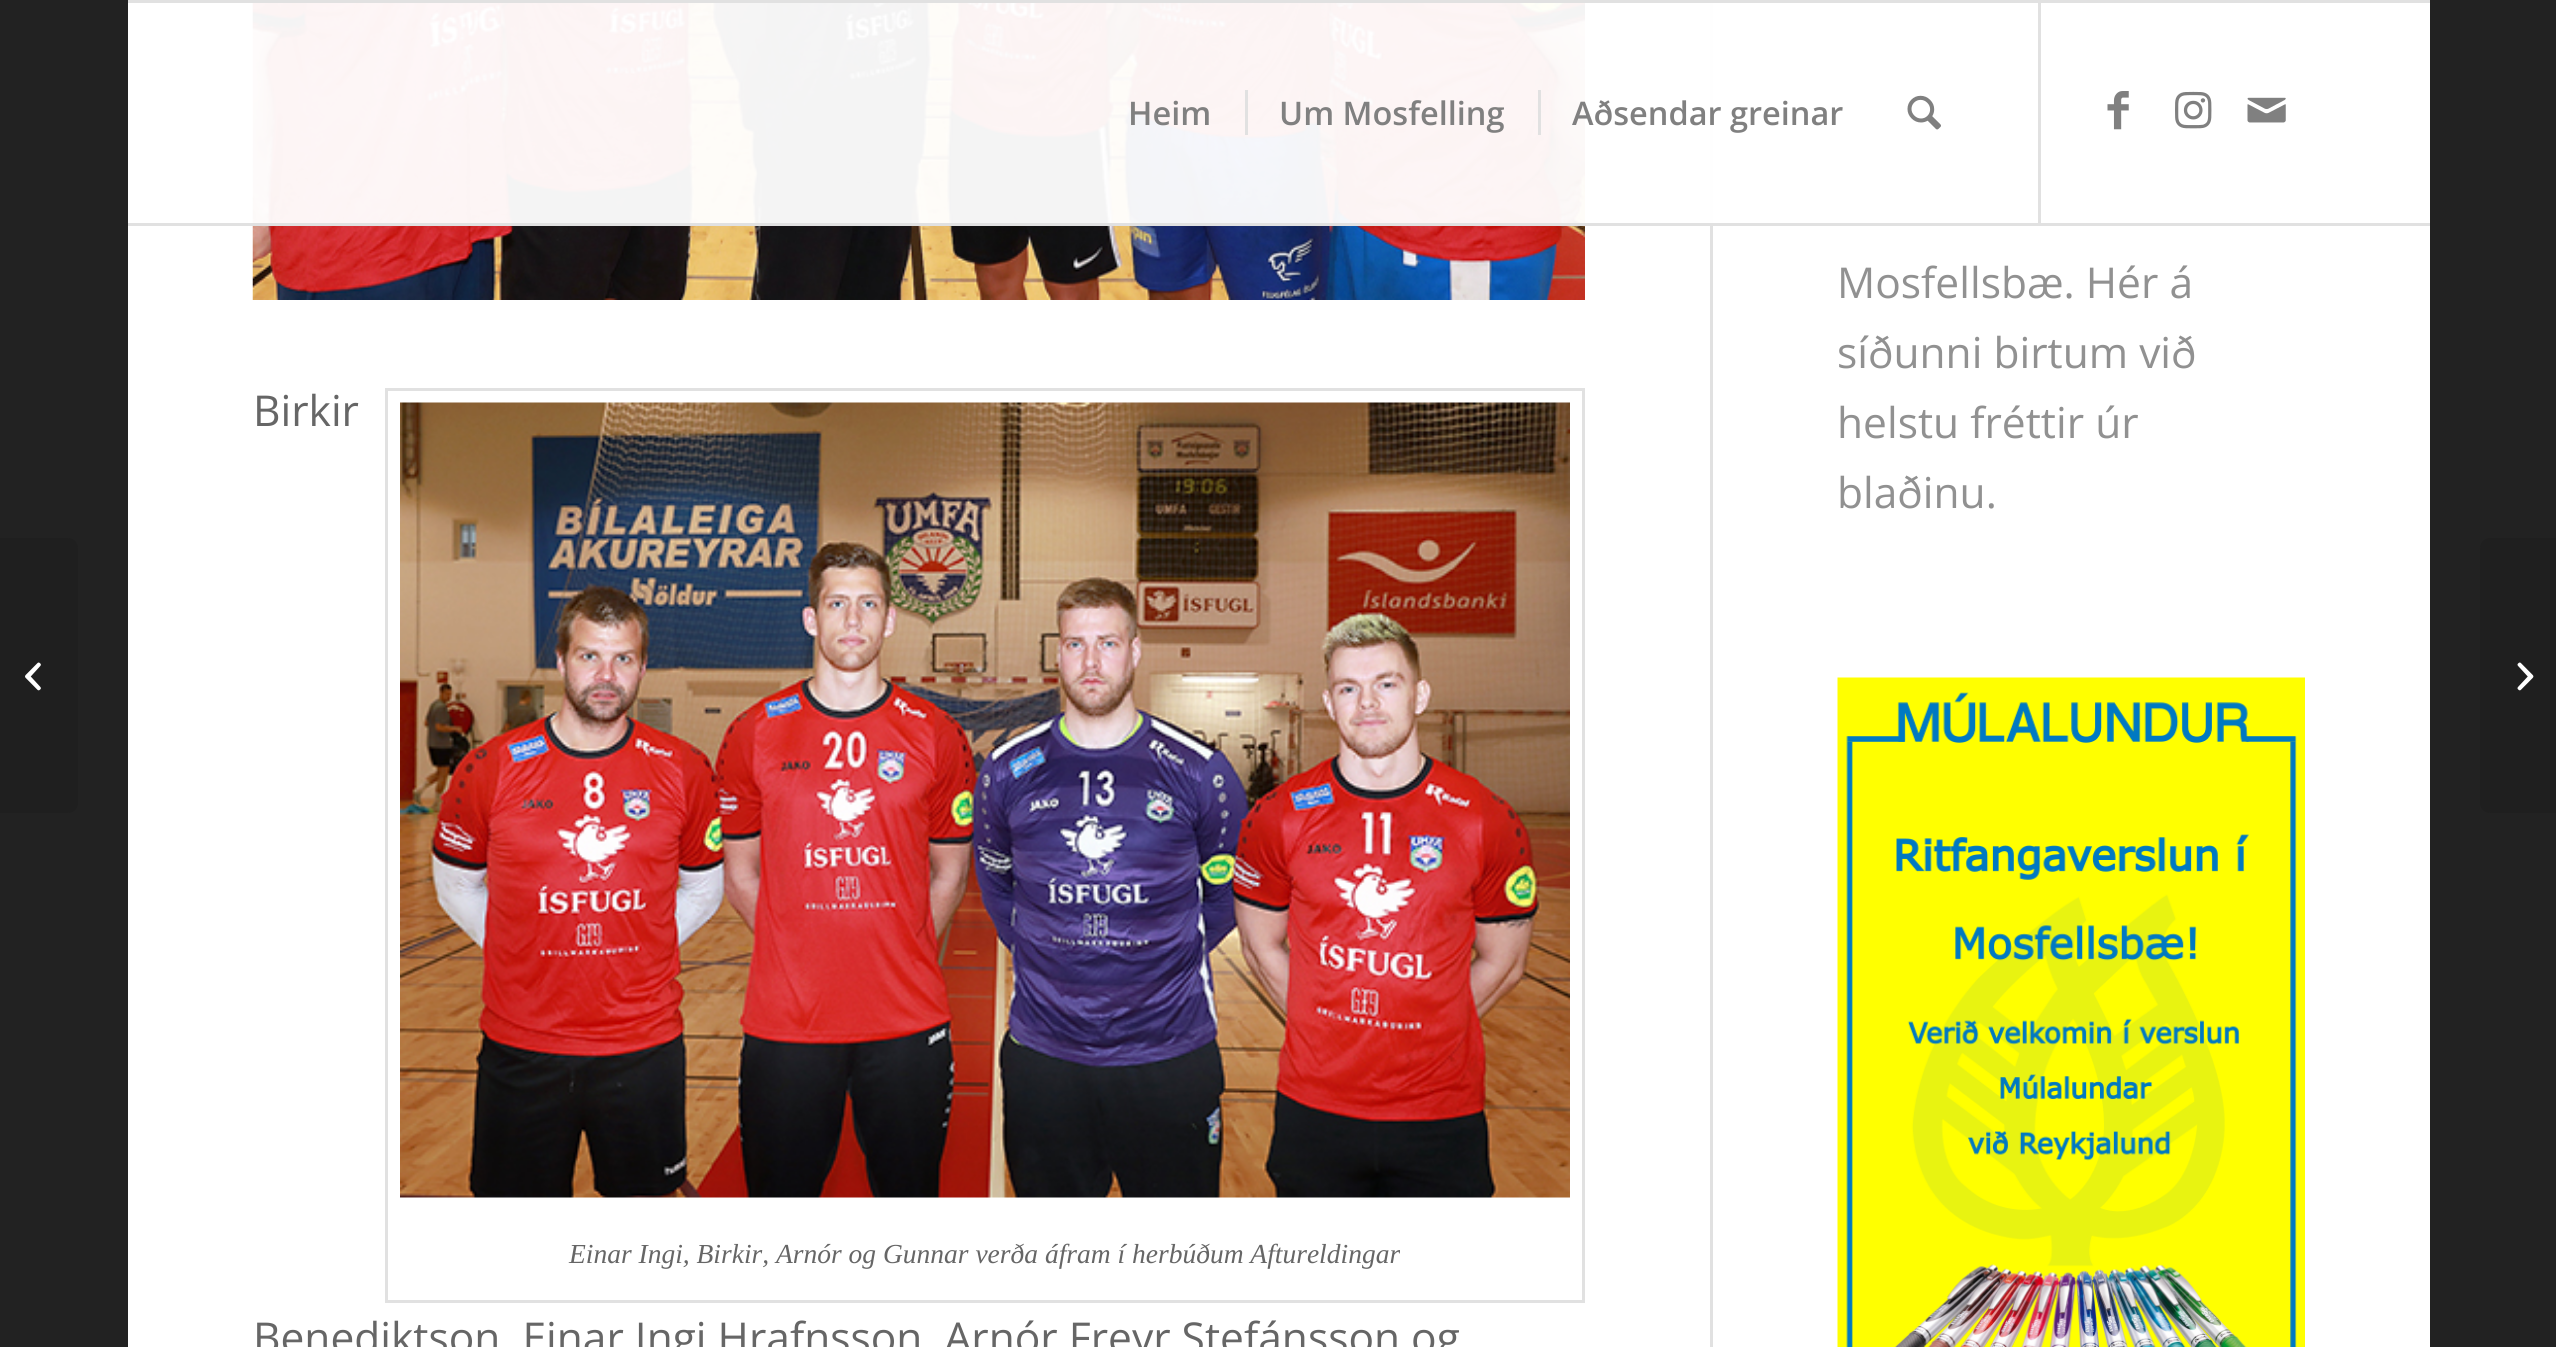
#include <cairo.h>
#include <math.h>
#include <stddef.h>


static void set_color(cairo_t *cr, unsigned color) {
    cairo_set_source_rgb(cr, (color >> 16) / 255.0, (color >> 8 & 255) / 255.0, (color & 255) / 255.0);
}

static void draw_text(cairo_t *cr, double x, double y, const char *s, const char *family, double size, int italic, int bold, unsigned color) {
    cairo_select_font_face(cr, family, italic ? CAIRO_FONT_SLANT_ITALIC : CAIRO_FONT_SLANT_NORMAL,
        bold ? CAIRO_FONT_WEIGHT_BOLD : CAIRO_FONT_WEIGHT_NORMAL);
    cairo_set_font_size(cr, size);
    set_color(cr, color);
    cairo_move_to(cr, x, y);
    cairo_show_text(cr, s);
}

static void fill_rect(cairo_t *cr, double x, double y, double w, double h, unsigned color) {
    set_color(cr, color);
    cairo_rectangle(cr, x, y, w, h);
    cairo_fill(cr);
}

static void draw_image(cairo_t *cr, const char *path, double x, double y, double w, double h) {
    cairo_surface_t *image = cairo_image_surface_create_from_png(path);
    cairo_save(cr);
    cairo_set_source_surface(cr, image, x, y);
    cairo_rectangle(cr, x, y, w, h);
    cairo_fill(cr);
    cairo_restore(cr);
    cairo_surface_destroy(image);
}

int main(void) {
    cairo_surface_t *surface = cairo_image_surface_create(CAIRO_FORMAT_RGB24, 2556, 1347);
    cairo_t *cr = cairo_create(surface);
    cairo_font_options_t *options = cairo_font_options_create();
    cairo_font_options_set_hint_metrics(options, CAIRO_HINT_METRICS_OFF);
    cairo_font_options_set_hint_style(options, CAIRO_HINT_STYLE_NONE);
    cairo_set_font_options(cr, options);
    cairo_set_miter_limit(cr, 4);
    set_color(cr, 0x222222);
    cairo_paint(cr);
    fill_rect(cr, 128, 3, 2302, 1344, 0xFFFFFF);
    fill_rect(cr, 1710, 0, 3, 1347, 0xE1E1E1);
    draw_image(cr, "assets/img6.png", 252, 3, 1333, 297);
    cairo_set_source_rgba(cr, 1, 1, 1, 0.95);
    cairo_rectangle(cr, 252, 3, 1461, 220);
    cairo_fill(cr);
    fill_rect(cr, 128, 0, 2302, 3, 0xE1E1E1);
    fill_rect(cr, 128, 223, 2302, 3, 0xE1E1E1);
    fill_rect(cr, 2038, 3, 3, 220, 0xE1E1E1);
    draw_text(cr, 1128, 125, "Heim", "Open Sans SemiBold", 32.5, 0, 0, 0x808080);
    draw_text(cr, 1279, 125, "Um Mosfelling", "Open Sans SemiBold", 32.5, 0, 0, 0x808080);
    fill_rect(cr, 1245, 90, 3, 45, 0xE1E1E1);
    draw_text(cr, 1572, 125, "Aðsendar greinar", "Open Sans SemiBold", 32.5, 0, 0, 0x808080);
    fill_rect(cr, 1538, 90, 3, 45, 0xE1E1E1);
    draw_image(cr, "assets/img1.png", 1907, 95, 34, 35);
    draw_image(cr, "assets/img2.png", 2107, 91, 22, 39);
    draw_image(cr, "assets/img3.png", 2175, 91, 37, 38);
    draw_image(cr, "assets/img4.png", 2247, 97, 39, 26);
    set_color(cr, 0x1F1F1F);
    cairo_new_path(cr);
    cairo_move_to(cr, 0, 538);
    cairo_line_to(cr, 68, 538);
    cairo_curve_to(cr, 73.5, 538, 78, 542.5, 78, 548);
    cairo_line_to(cr, 78, 803);
    cairo_curve_to(cr, 78, 808.5, 73.5, 813, 68, 813);
    cairo_line_to(cr, 0, 813);
    cairo_close_path(cr);
    cairo_fill(cr);
    draw_image(cr, "assets/img5.png", 25, 662, 16, 29);
    draw_text(cr, 253, 426, "Birkir", "Open Sans", 42.5, 0, 0, 0x666666);
    draw_text(cr, 253, 1353, "Benediktson, Einar Ingi Hrafnsson, Arnór Freyr Stefánsson og", "Open Sans", 42.5, 0, 0, 0x666666);
    cairo_rectangle(cr, 386.5, 389.5, 1197, 912);
    set_color(cr, 0xE1E1E1);
    cairo_set_line_width(cr, 3);
    cairo_stroke(cr);
    draw_image(cr, "assets/img7.png", 400, 402, 1170, 796);
    draw_text(cr, 569, 1263, "Einar Ingi, Birkir, Arnór og Gunnar verða áfram í herbúðum Aftureldingar", "Liberation Serif", 27.5, 1, 0, 0x666666);
    draw_text(cr, 1837, 298, "Mosfellsbæ. Hér á", "Open Sans", 42.5, 0, 0, 0x919191);
    draw_text(cr, 1837, 368, "síðunni birtum við", "Open Sans", 42.5, 0, 0, 0x919191);
    draw_text(cr, 1837, 438, "helstu fréttir úr", "Open Sans", 42.5, 0, 0, 0x919191);
    draw_text(cr, 1837, 508, "blaðinu.", "Open Sans", 42.5, 0, 0, 0x919191);
    draw_image(cr, "assets/img8.png", 1837, 677, 468, 670);
    set_color(cr, 0x1F1F1F);
    cairo_new_path(cr);
    cairo_move_to(cr, 2490, 538);
    cairo_line_to(cr, 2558, 538);
    cairo_line_to(cr, 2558, 813);
    cairo_line_to(cr, 2490, 813);
    cairo_curve_to(cr, 2484.5, 813, 2480, 808.5, 2480, 803);
    cairo_line_to(cr, 2480, 548);
    cairo_curve_to(cr, 2480, 542.5, 2484.5, 538, 2490, 538);
    cairo_close_path(cr);
    cairo_fill(cr);
    draw_image(cr, "assets/img9.png", 2517, 662, 17, 29);
    cairo_surface_write_to_png(surface, "output.png");
    cairo_font_options_destroy(options);
    cairo_destroy(cr);
    cairo_surface_destroy(surface);
    return 0;
}
